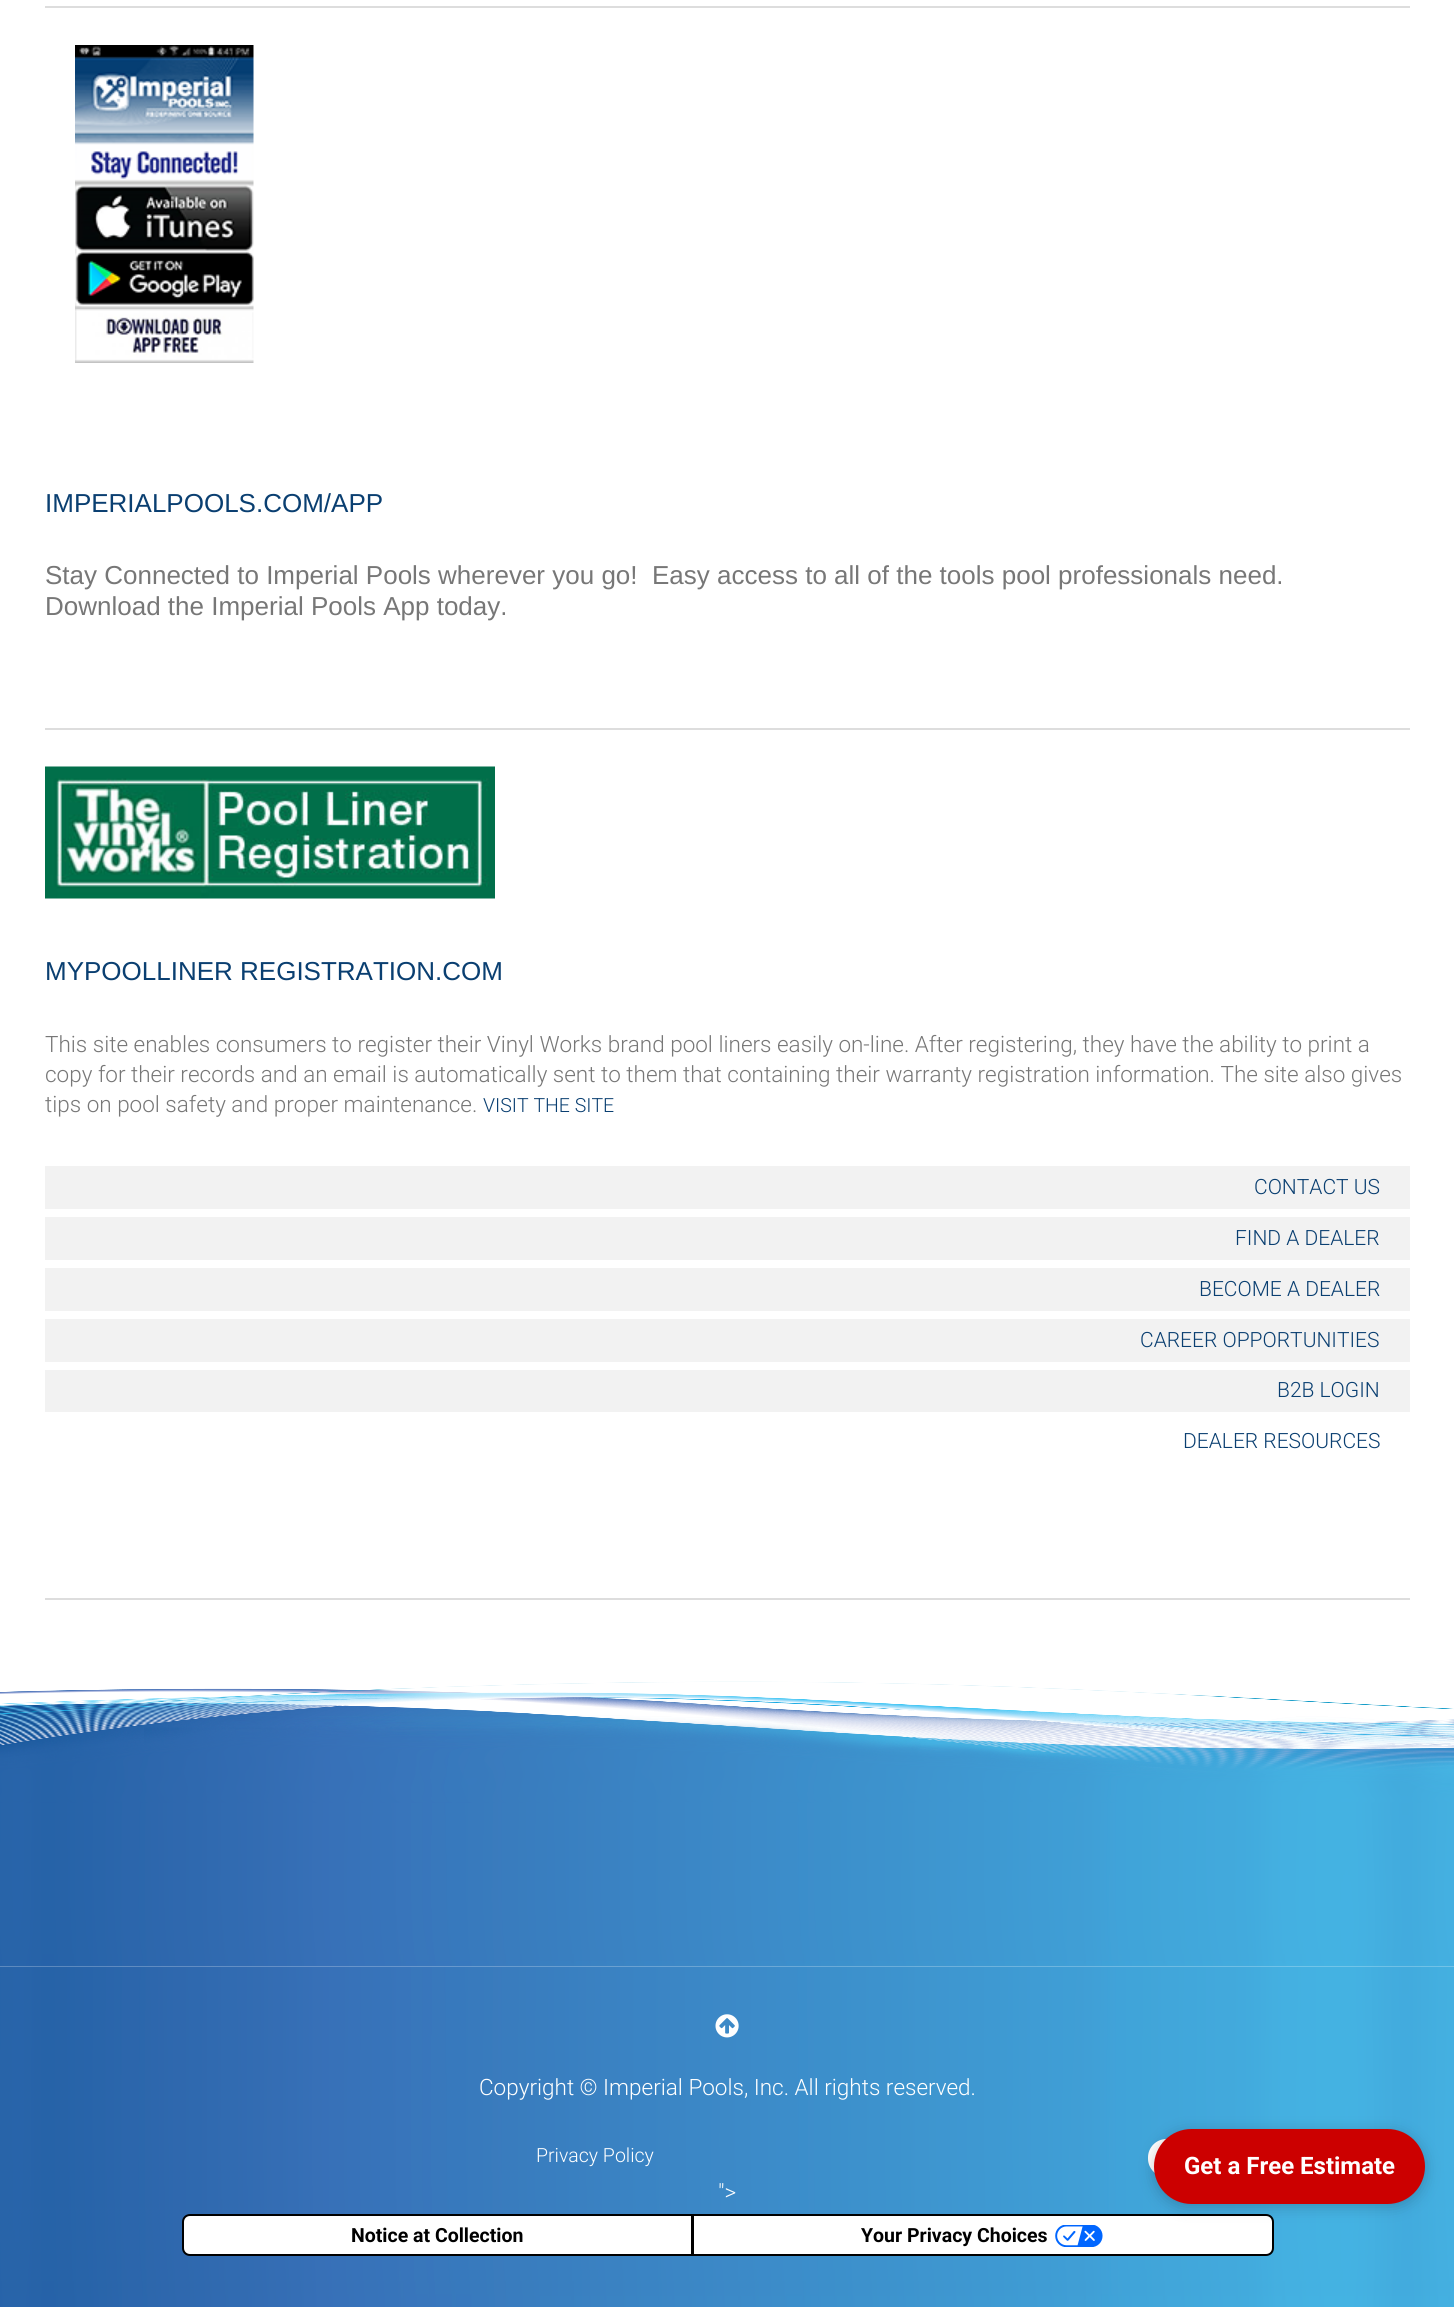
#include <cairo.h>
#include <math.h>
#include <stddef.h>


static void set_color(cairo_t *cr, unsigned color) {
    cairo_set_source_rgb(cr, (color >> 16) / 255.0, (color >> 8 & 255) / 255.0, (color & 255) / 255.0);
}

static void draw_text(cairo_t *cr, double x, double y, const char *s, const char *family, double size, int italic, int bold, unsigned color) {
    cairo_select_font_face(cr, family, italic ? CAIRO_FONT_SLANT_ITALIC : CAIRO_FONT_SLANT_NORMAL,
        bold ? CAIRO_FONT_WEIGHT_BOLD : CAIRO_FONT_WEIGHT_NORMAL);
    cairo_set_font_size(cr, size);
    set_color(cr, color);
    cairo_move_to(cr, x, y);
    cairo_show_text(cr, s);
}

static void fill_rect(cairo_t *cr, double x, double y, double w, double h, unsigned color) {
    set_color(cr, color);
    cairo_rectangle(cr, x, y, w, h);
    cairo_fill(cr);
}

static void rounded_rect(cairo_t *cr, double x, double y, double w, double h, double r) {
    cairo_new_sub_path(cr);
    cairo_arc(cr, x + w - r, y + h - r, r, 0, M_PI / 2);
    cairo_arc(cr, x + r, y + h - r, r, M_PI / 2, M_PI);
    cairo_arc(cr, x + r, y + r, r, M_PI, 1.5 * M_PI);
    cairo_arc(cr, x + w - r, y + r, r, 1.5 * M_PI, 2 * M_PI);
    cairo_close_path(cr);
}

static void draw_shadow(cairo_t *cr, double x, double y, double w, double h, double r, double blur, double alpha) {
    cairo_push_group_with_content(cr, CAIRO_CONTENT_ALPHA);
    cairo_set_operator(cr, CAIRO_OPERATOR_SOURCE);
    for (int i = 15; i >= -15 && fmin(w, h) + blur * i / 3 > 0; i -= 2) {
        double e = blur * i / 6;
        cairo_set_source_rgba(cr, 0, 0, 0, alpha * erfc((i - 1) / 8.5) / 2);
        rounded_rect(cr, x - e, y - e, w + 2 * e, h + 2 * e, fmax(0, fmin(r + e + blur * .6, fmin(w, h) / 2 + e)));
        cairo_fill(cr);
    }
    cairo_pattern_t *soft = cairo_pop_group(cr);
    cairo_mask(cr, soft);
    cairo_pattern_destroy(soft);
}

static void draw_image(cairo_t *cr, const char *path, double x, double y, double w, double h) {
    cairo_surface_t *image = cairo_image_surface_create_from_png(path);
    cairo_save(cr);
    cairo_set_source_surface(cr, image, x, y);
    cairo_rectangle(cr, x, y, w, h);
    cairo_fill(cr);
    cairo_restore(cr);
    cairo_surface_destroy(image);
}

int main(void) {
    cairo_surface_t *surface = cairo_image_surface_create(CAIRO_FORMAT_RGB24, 1454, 2308);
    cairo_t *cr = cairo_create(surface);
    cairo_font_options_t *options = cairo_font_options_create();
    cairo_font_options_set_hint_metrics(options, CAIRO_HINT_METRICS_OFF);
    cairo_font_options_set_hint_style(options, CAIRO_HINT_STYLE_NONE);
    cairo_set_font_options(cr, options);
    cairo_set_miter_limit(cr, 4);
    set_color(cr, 0xFFFFFF);
    cairo_paint(cr);
    fill_rect(cr, 45, 6, 1365, 2, 0xDDDDDD);
    draw_image(cr, "assets/img1.png", 75, 45, 179, 318);
    draw_text(cr, 45, 512, "IMPERIALPOOLS.COM/APP", "Liberation Sans", 26, 0, 0, 0x0A3F71);
    draw_text(cr, 45, 584, "Stay Connected to Imperial Pools wherever you go!  Easy access to all of the tools pool professionals need.", "Liberation Sans", 26, 0, 0, 0x777777);
    draw_text(cr, 45, 615, "Download the Imperial Pools App today.", "Liberation Sans", 26, 0, 0, 0x777777);
    fill_rect(cr, 45, 728, 1365, 2, 0xDDDDDD);
    draw_image(cr, "assets/img2.png", 45, 766, 450, 133);
    draw_text(cr, 45, 980, "MYPOOLLINER REGISTRATION.COM", "Liberation Sans", 26, 0, 0, 0x0A3F71);
    draw_text(cr, 45, 1052, "This site enables consumers to register their Vinyl Works brand pool liners easily on-line. After registering, they have the ability to print a", "Roboto Light", 22.5, 0, 0, 0x777777);
    draw_text(cr, 45, 1082, "copy for their records and an email is automatically sent to them that containing their warranty registration information. The site also gives", "Roboto Light", 22.5, 0, 0, 0x777777);
    draw_text(cr, 45, 1112, "tips on pool safety and proper maintenance.", "Roboto Light", 22.5, 0, 0, 0x777777);
    draw_text(cr, 483, 1112, "VISIT THE SITE", "Roboto Light", 19.5, 0, 0, 0x0A3F71);
    fill_rect(cr, 45, 1166, 1365, 43, 0xF2F2F2);
    draw_text(cr, 1254, 1194, "CONTACT US", "Roboto Light", 21, 0, 0, 0x0A3F71);
    fill_rect(cr, 45, 1217, 1365, 43, 0xF2F2F2);
    draw_text(cr, 1235, 1245, "FIND A DEALER", "Roboto Light", 21, 0, 0, 0x0A3F71);
    fill_rect(cr, 45, 1268, 1365, 43, 0xF2F2F2);
    draw_text(cr, 1199, 1296, "BECOME A DEALER", "Roboto Light", 21, 0, 0, 0x0A3F71);
    fill_rect(cr, 45, 1319, 1365, 43, 0xF2F2F2);
    draw_text(cr, 1140, 1347, "CAREER OPPORTUNITIES", "Roboto Light", 21, 0, 0, 0x0A3F71);
    fill_rect(cr, 45, 1370, 1365, 42, 0xF2F2F2);
    draw_text(cr, 1277, 1397, "B2B LOGIN", "Roboto Light", 21, 0, 0, 0x0A3F71);
    draw_text(cr, 1183, 1448, "DEALER RESOURCES", "Roboto Light", 21, 0, 0, 0x0A3F71);
    fill_rect(cr, 45, 1598, 1365, 2, 0xDDDDDD);
    draw_image(cr, "assets/img3.png", 0, 1681, 1454, 286);
    draw_image(cr, "assets/img4.png", 0, 1966, 1454, 341);
    draw_image(cr, "assets/img5.png", 715, 2014, 24, 24);
    draw_text(cr, 479, 2095, "Copyright © Imperial Pools, Inc. All rights reserved.", "Roboto Light", 22.5, 0, 0, 0xFFFFFF);
    draw_text(cr, 536, 2162, "Privacy Policy", "Roboto Light", 19.5, 0, 0, 0xFFFFFF);
    rounded_rect(cr, 1148, 2139, 37, 38, 18.5);
    cairo_fill(cr);
    draw_text(cr, 718, 2200, "\">", "Roboto Light", 22.5, 0, 0, 0xFFFFFF);
    cairo_new_path(cr);
    cairo_move_to(cr, 190, 2215);
    cairo_line_to(cr, 692, 2215);
    cairo_line_to(cr, 692, 2255);
    cairo_line_to(cr, 190, 2255);
    cairo_curve_to(cr, 186, 2255, 183, 2252, 183, 2248);
    cairo_line_to(cr, 183, 2222);
    cairo_curve_to(cr, 183, 2218, 186, 2215, 190, 2215);
    cairo_close_path(cr);
    cairo_fill_preserve(cr);
    set_color(cr, 0x000000);
    cairo_stroke(cr);
    draw_text(cr, 351, 2242, "Notice at Collection", "Roboto", 19.5, 0, 1, 0x000000);
    set_color(cr, 0xFFFFFF);
    cairo_new_path(cr);
    cairo_move_to(cr, 693, 2215);
    cairo_line_to(cr, 1266, 2215);
    cairo_curve_to(cr, 1270, 2215, 1273, 2218, 1273, 2222);
    cairo_line_to(cr, 1273, 2248);
    cairo_curve_to(cr, 1273, 2252, 1270, 2255, 1266, 2255);
    cairo_line_to(cr, 693, 2255);
    cairo_close_path(cr);
    cairo_fill_preserve(cr);
    set_color(cr, 0x000000);
    cairo_stroke(cr);
    draw_text(cr, 861, 2242, "Your Privacy Choices", "Roboto", 19.5, 0, 1, 0x000000);
    draw_image(cr, "assets/img6.png", 1055, 2225, 48, 22);
    set_color(cr, 0x000000);
    draw_shadow(cr, 1154, 2132, 271, 75, 37.5, 7.5, 0.2);
    set_color(cr, 0xCC0000);
    rounded_rect(cr, 1154, 2129, 271, 75, 37.5);
    cairo_fill(cr);
    draw_text(cr, 1184, 2174, "Get a Free Estimate", "Roboto", 24, 0, 1, 0xFFFFFF);
    cairo_surface_write_to_png(surface, "output.png");
    cairo_font_options_destroy(options);
    cairo_destroy(cr);
    cairo_surface_destroy(surface);
    return 0;
}
